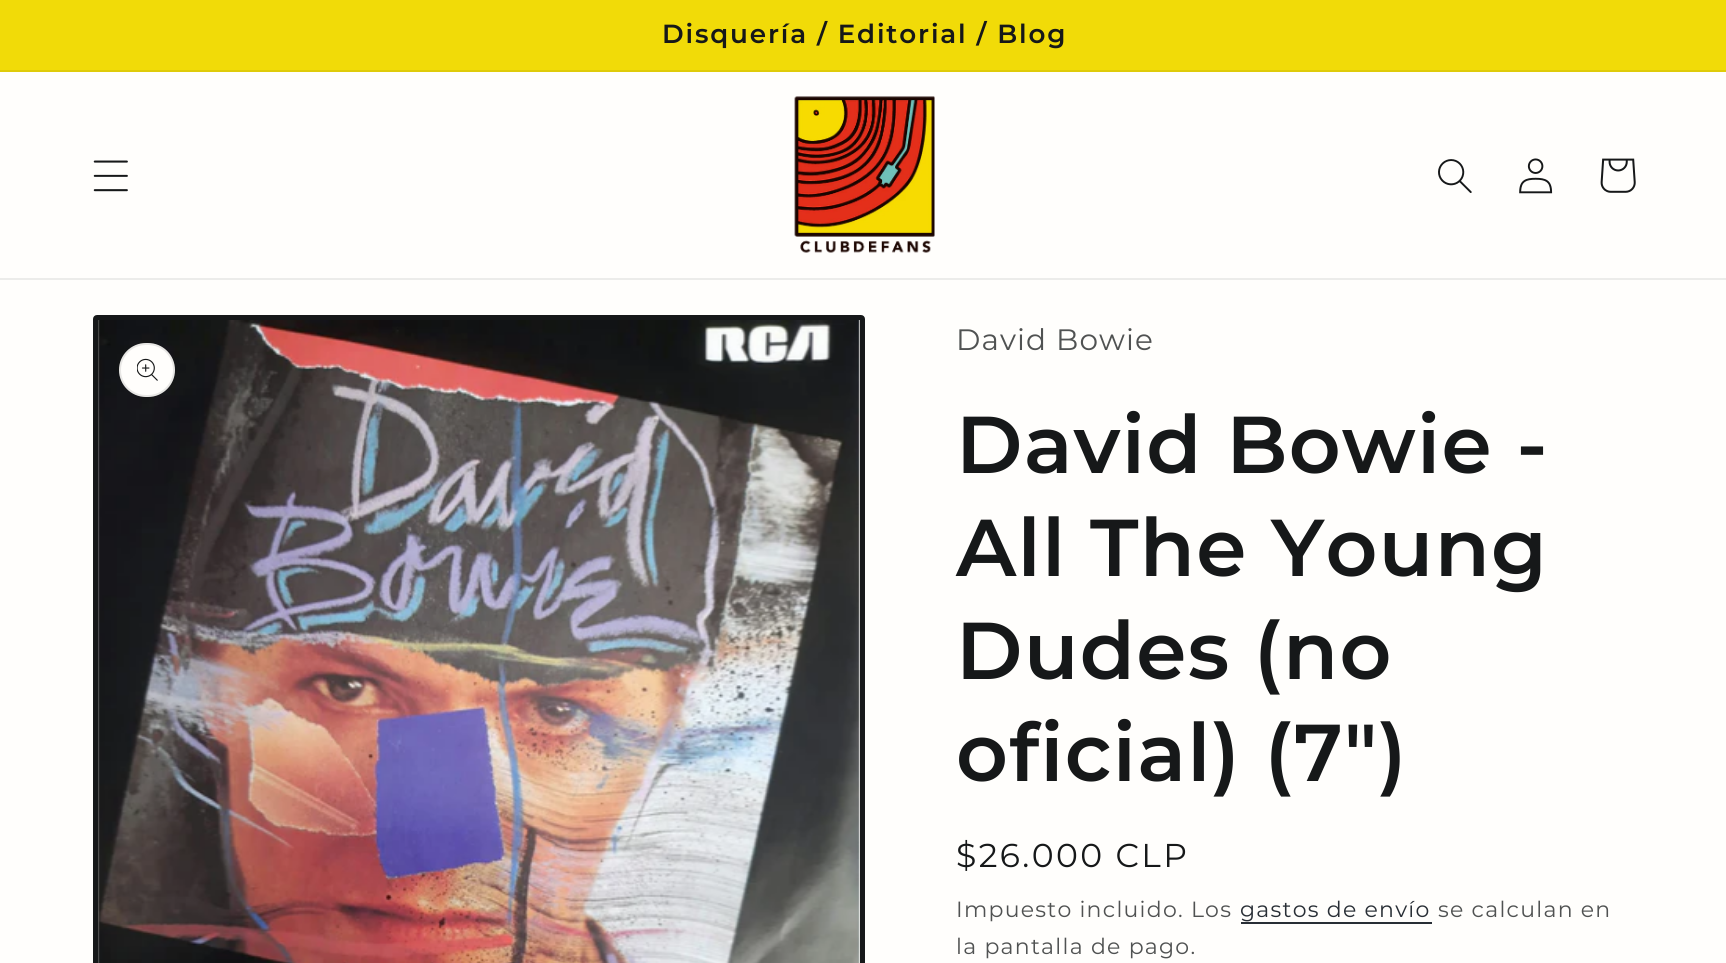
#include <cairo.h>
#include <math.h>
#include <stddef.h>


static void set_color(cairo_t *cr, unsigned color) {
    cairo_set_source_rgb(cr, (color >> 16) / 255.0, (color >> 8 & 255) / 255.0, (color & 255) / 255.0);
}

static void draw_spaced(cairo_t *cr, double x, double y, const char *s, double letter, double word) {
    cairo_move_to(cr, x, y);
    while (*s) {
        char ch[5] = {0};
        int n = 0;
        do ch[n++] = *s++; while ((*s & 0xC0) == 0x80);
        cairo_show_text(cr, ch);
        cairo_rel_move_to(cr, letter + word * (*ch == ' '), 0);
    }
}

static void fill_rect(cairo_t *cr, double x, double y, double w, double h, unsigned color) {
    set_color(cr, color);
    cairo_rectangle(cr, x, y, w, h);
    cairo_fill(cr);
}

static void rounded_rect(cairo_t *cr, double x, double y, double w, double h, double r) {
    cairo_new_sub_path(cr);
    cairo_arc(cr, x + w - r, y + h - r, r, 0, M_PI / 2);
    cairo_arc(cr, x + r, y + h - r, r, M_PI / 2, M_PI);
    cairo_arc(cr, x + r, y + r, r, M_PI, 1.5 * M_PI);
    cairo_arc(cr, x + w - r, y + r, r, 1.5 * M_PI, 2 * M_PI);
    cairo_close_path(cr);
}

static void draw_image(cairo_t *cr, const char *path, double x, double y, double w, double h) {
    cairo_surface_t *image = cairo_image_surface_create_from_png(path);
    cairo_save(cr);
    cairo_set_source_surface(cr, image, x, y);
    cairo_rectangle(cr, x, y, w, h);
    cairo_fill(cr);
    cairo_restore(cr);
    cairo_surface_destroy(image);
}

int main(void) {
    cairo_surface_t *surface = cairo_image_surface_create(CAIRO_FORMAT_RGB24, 1726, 963);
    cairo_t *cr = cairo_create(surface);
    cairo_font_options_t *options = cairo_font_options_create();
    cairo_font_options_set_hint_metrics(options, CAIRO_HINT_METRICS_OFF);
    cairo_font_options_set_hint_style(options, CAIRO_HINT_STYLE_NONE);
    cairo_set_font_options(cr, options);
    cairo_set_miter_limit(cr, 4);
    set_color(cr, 0xFFFEFC);
    cairo_paint(cr);
    fill_rect(cr, 0, 0, 1726, 70, 0xF1DB08);
    fill_rect(cr, 0, 70, 1726, 2, 0xDFCB09);
    cairo_select_font_face(cr, "Montserrat SemiBold", CAIRO_FONT_SLANT_NORMAL, CAIRO_FONT_WEIGHT_NORMAL);
    cairo_set_font_size(cr, 26.2);
    set_color(cr, 0x161819);
    draw_spaced(cr, 662, 43, "Disquería / Editorial / Blog", 1.85, 0);
    fill_rect(cr, 0, 278, 1726, 2, 0xECECEA);
    draw_image(cr, "assets/img1.png", 93, 160, 35, 32);
    draw_image(cr, "assets/img2.png", 794, 96, 141, 157);
    draw_image(cr, "assets/img3.png", 1438, 159, 34, 34);
    draw_image(cr, "assets/img4.png", 1519, 158, 34, 36);
    draw_image(cr, "assets/img5.png", 1600, 158, 36, 35);
    rounded_rect(cr, 95.5, 317.5, 767, 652, 1.5);
    set_color(cr, 0x161819);
    cairo_set_line_width(cr, 5);
    cairo_stroke(cr);
    draw_image(cr, "assets/img6.png", 98, 320, 762, 643);
    set_color(cr, 0xFFFEFC);
    rounded_rect(cr, 119, 343, 56, 54, 27);
    cairo_fill(cr);
    rounded_rect(cr, 120, 344, 54, 52, 26);
    cairo_set_source_rgba(cr, 0.086, 0.094, 0.098, 0.1);
    cairo_set_line_width(cr, 2);
    cairo_stroke(cr);
    draw_image(cr, "assets/img7.png", 137, 358, 21, 23);
    cairo_select_font_face(cr, "Montserrat", CAIRO_FONT_SLANT_NORMAL, CAIRO_FONT_WEIGHT_NORMAL);
    cairo_set_font_size(cr, 29.5);
    set_color(cr, 0x505252);
    draw_spaced(cr, 956, 350, "David Bowie", 1.1, 0);
    cairo_select_font_face(cr, "Montserrat SemiBold", CAIRO_FONT_SLANT_NORMAL, CAIRO_FONT_WEIGHT_NORMAL);
    cairo_set_font_size(cr, 80.5);
    set_color(cr, 0x161819);
    draw_spaced(cr, 956, 473, "David Bowie -", 1.25, 0);
    draw_spaced(cr, 956, 576, "All The Young", 1.25, 0);
    draw_spaced(cr, 956, 679, "Dudes (no", 1.25, 0);
    draw_spaced(cr, 956, 781, "oficial) (7″)", 1.25, 0);
    cairo_select_font_face(cr, "Montserrat", CAIRO_FONT_SLANT_NORMAL, CAIRO_FONT_WEIGHT_NORMAL);
    cairo_set_font_size(cr, 33);
    draw_spaced(cr, 956, 867, "$26.000 CLP", 2.4, 0);
    cairo_set_font_size(cr, 22);
    set_color(cr, 0x505252);
    draw_spaced(cr, 956, 917, "Impuesto incluido. Los", 1.25, 0);
    set_color(cr, 0x282E35);
    draw_spaced(cr, 1240, 917, "gastos de envío", 1.25, 0);
    fill_rect(cr, 1241, 922, 191, 2, 0x282E35);
    set_color(cr, 0x505252);
    draw_spaced(cr, 1438, 917, "se calculan en", 1.25, 0);
    draw_spaced(cr, 956, 954, "la pantalla de pago.", 1.25, 0);
    cairo_surface_write_to_png(surface, "output.png");
    cairo_font_options_destroy(options);
    cairo_destroy(cr);
    cairo_surface_destroy(surface);
    return 0;
}
